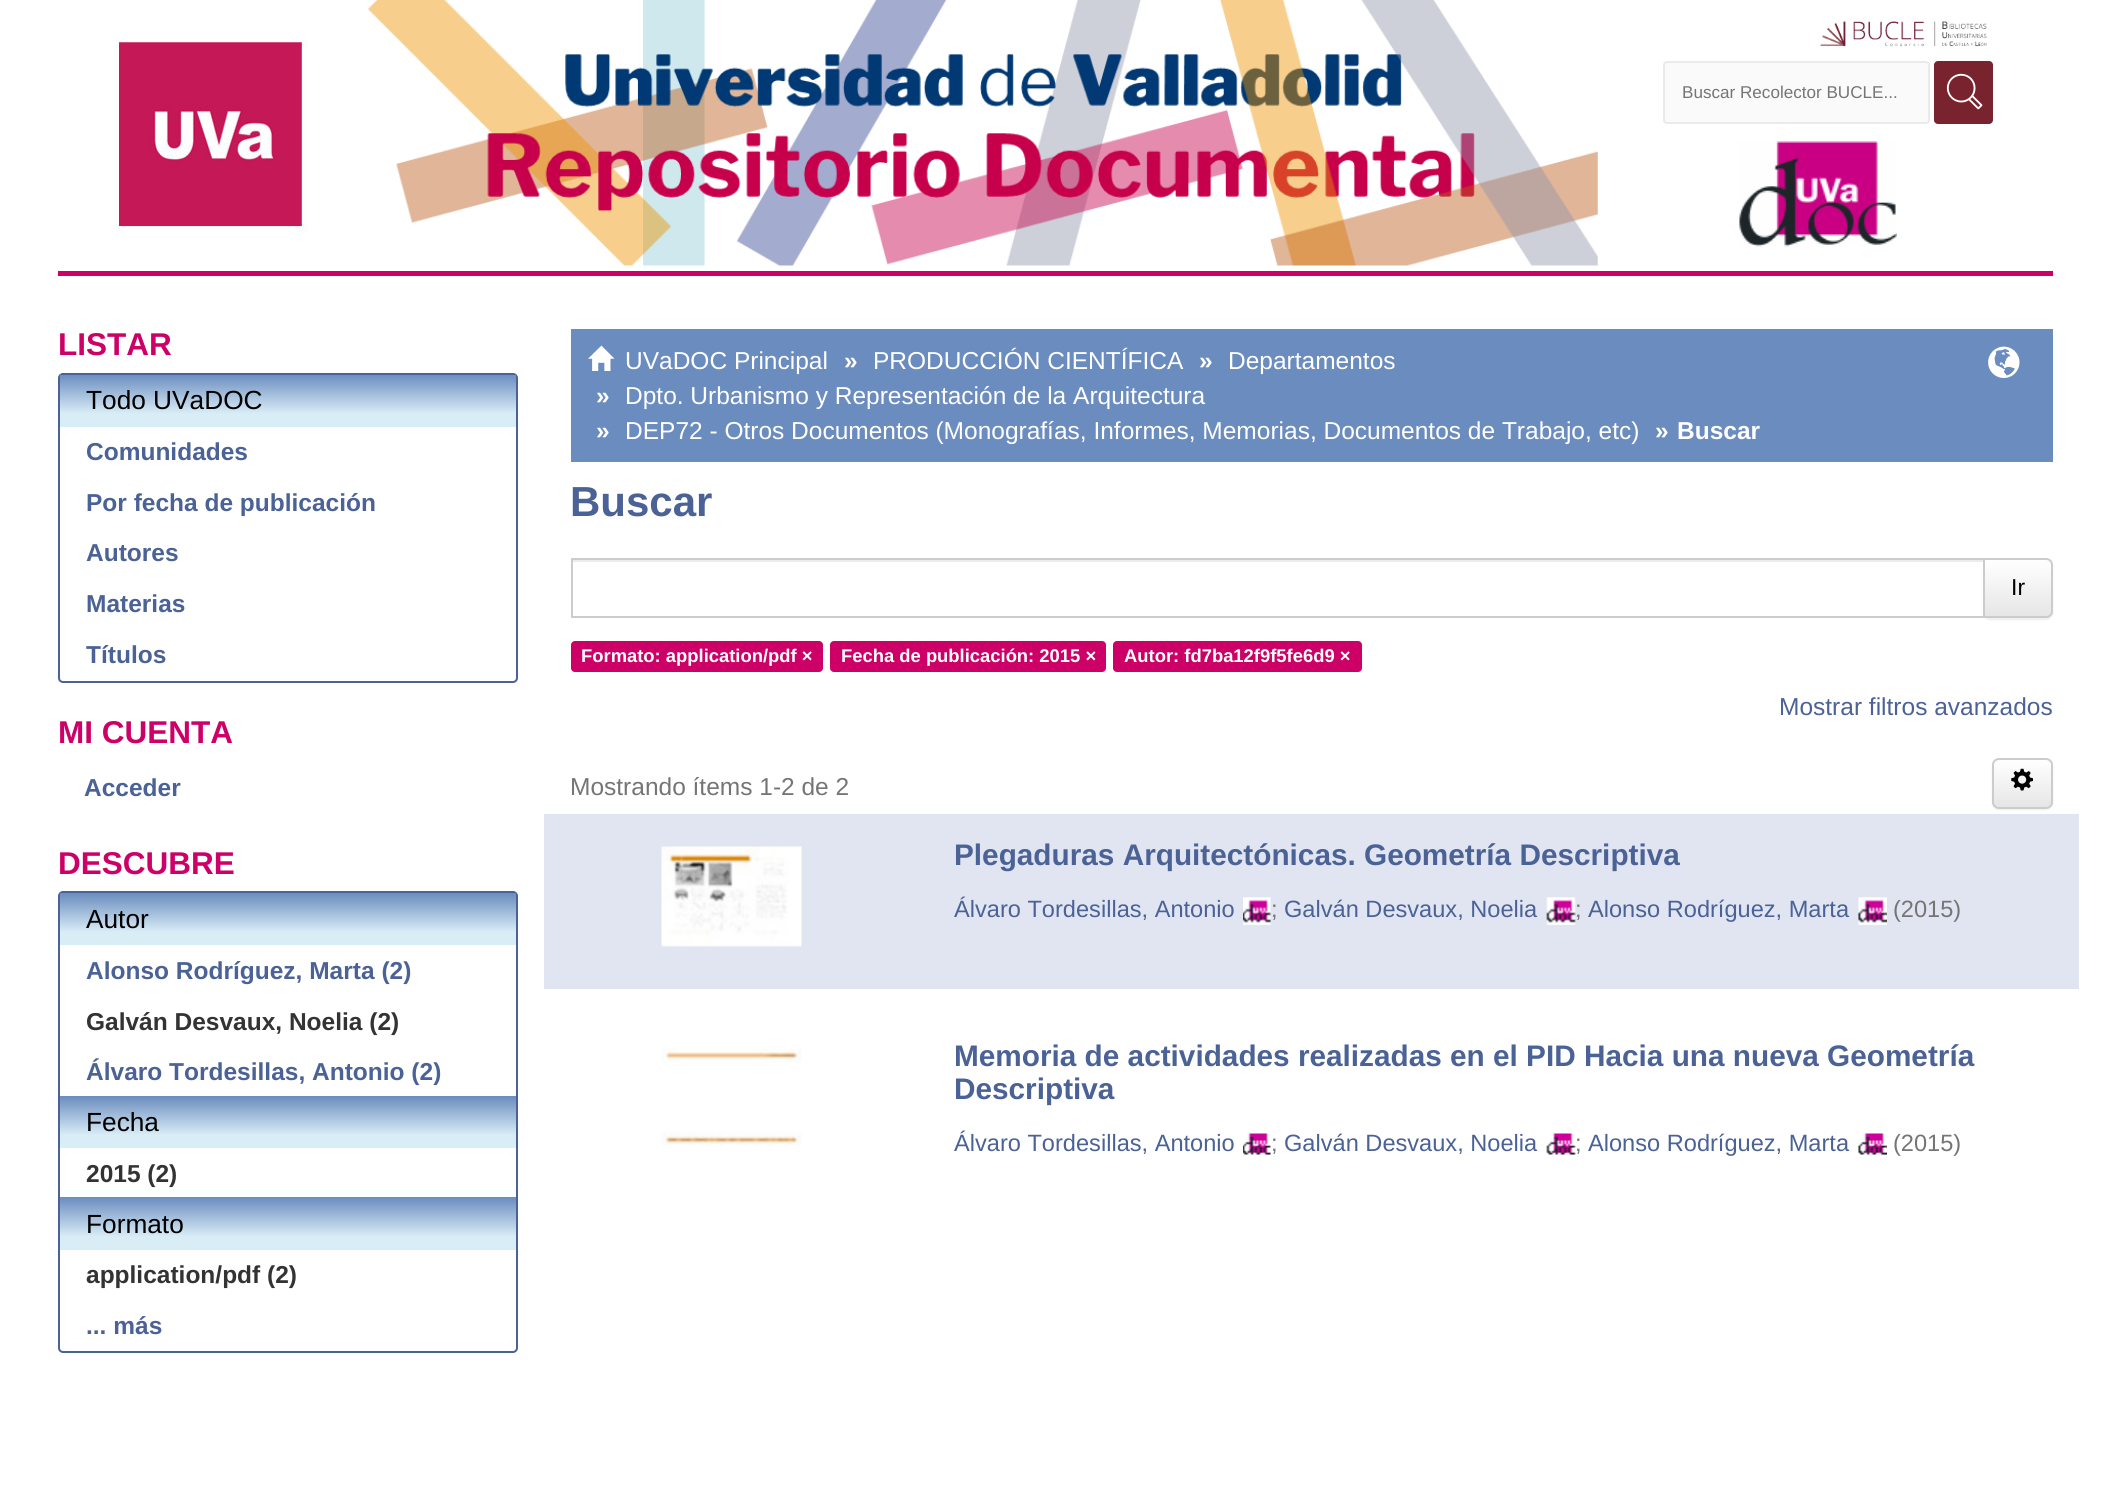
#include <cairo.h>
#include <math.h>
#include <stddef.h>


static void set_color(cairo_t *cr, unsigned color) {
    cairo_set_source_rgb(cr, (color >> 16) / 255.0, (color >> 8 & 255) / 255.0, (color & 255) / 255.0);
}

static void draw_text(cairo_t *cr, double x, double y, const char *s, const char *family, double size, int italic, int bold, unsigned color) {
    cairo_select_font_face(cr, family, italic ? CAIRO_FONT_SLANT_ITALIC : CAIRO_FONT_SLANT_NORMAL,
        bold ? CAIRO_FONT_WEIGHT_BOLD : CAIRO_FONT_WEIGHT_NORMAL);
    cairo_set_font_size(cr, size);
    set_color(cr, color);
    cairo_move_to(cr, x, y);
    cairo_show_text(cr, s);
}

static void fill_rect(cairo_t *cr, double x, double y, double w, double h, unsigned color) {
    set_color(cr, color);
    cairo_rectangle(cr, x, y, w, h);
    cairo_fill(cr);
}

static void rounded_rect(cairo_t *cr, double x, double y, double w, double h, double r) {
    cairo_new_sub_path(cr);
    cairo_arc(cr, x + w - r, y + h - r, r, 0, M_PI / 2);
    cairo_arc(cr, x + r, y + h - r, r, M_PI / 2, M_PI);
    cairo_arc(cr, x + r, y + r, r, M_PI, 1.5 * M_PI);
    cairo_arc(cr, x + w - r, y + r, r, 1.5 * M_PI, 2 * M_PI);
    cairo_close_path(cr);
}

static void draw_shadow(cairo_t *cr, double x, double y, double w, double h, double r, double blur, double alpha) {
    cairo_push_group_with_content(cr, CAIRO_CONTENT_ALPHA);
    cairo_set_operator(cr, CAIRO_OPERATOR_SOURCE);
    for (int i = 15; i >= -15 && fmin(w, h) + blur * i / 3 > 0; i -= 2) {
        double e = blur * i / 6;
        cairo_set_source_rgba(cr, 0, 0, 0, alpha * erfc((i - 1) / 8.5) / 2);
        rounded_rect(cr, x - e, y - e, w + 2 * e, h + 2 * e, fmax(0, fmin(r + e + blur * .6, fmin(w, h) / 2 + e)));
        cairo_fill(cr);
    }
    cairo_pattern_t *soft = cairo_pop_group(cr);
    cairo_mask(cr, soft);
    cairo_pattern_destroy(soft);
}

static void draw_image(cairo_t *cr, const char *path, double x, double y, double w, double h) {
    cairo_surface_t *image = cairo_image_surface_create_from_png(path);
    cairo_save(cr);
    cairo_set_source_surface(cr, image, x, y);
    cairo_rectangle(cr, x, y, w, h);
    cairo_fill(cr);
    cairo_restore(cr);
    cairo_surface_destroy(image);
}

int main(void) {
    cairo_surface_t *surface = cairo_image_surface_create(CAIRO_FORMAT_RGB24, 2110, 1502);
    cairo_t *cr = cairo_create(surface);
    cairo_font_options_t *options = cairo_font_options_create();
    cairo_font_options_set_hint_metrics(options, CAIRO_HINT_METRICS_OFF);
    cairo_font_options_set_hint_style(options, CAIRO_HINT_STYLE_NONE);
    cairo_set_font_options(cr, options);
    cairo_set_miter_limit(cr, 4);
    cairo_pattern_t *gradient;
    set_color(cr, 0xFFFFFF);
    cairo_paint(cr);
    fill_rect(cr, 58, 271, 1995, 5, 0xCC0066);
    draw_image(cr, "assets/img1.png", 116, 40, 192, 192);
    draw_image(cr, "assets/img2.png", 367, 0, 1231, 266);
    draw_image(cr, "assets/img3.png", 1820, 21, 167, 26);
    set_color(cr, 0xFAFAFA);
    rounded_rect(cr, 1664, 62, 265, 61, 3);
    cairo_fill_preserve(cr);
    set_color(cr, 0xEAEAEA);
    cairo_stroke(cr);
    draw_text(cr, 1682, 98, "Buscar Recolector BUCLE...", "Liberation Sans", 17.1, 0, 0, 0x757575);
    set_color(cr, 0x79232E);
    rounded_rect(cr, 1934, 61, 59, 63, 4);
    cairo_fill(cr);
    draw_image(cr, "assets/img4.png", 1946, 73, 37, 37);
    draw_image(cr, "assets/img5.png", 1739, 141, 158, 106);
    draw_text(cr, 58, 355, "LISTAR", "Liberation Sans", 31.5, 0, 1, 0xCC0066);
    rounded_rect(cr, 59, 374, 458, 308, 4);
    set_color(cr, 0x4B6296);
    cairo_stroke(cr);
    gradient = cairo_pattern_create_linear(288, 374, 288, 427);
    cairo_pattern_add_color_stop_rgba(gradient, 0, 0.416, 0.549, 0.745, 1);
    cairo_pattern_add_color_stop_rgba(gradient, 0.75, 0.851, 0.929, 0.969, 1);
    cairo_set_source(cr, gradient);
    cairo_pattern_destroy(gradient);
    cairo_rectangle(cr, 60, 375, 456, 52);
    cairo_fill(cr);
    draw_text(cr, 86, 409, "Todo UVaDOC", "Liberation Sans", 26.25, 0, 0, 0x000000);
    draw_text(cr, 86, 460, "Comunidades", "Liberation Sans", 24.5, 0, 1, 0x4B6296);
    draw_text(cr, 86, 511, "Por fecha de publicación", "Liberation Sans", 24.5, 0, 1, 0x4B6296);
    draw_text(cr, 86, 561, "Autores", "Liberation Sans", 24.5, 0, 1, 0x4B6296);
    draw_text(cr, 86, 612, "Materias", "Liberation Sans", 24.5, 0, 1, 0x4B6296);
    draw_text(cr, 86, 663, "Títulos", "Liberation Sans", 24.5, 0, 1, 0x4B6296);
    draw_text(cr, 58, 743, "MI CUENTA", "Liberation Sans", 31.5, 0, 1, 0xCC0066);
    draw_text(cr, 84, 796, "Acceder", "Liberation Sans", 24.5, 0, 1, 0x4B6296);
    draw_text(cr, 58, 874, "DESCUBRE", "Liberation Sans", 31.5, 0, 1, 0xCC0066);
    rounded_rect(cr, 59, 892, 458, 460, 4);
    set_color(cr, 0x4B6296);
    cairo_stroke(cr);
    gradient = cairo_pattern_create_linear(288, 893, 288, 945);
    cairo_pattern_add_color_stop_rgba(gradient, 0, 0.416, 0.549, 0.745, 1);
    cairo_pattern_add_color_stop_rgba(gradient, 0.75, 0.851, 0.929, 0.969, 1);
    cairo_set_source(cr, gradient);
    cairo_pattern_destroy(gradient);
    cairo_rectangle(cr, 60, 893, 456, 52);
    cairo_fill(cr);
    draw_text(cr, 86, 928, "Autor", "Liberation Sans", 26.25, 0, 0, 0x000000);
    draw_text(cr, 86, 979, "Alonso Rodríguez, Marta (2)", "Liberation Sans", 24.5, 0, 1, 0x4B6296);
    draw_text(cr, 86, 1030, "Galván Desvaux, Noelia (2)", "Liberation Sans", 24.5, 0, 1, 0x333333);
    draw_text(cr, 86, 1080, "Álvaro Tordesillas, Antonio (2)", "Liberation Sans", 24.5, 0, 1, 0x4B6296);
    gradient = cairo_pattern_create_linear(288, 1096, 288, 1148);
    cairo_pattern_add_color_stop_rgba(gradient, 0, 0.416, 0.549, 0.745, 1);
    cairo_pattern_add_color_stop_rgba(gradient, 0.75, 0.851, 0.929, 0.969, 1);
    cairo_set_source(cr, gradient);
    cairo_pattern_destroy(gradient);
    cairo_rectangle(cr, 60, 1096, 456, 52);
    cairo_fill(cr);
    draw_text(cr, 86, 1131, "Fecha", "Liberation Sans", 26.25, 0, 0, 0x000000);
    draw_text(cr, 86, 1182, "2015 (2)", "Liberation Sans", 24.5, 0, 1, 0x333333);
    gradient = cairo_pattern_create_linear(288, 1197, 288, 1250);
    cairo_pattern_add_color_stop_rgba(gradient, 0, 0.416, 0.549, 0.745, 1);
    cairo_pattern_add_color_stop_rgba(gradient, 0.75, 0.851, 0.929, 0.969, 1);
    cairo_set_source(cr, gradient);
    cairo_pattern_destroy(gradient);
    cairo_rectangle(cr, 60, 1197, 456, 53);
    cairo_fill(cr);
    draw_text(cr, 86, 1233, "Formato", "Liberation Sans", 26.25, 0, 0, 0x000000);
    draw_text(cr, 86, 1283, "application/pdf (2)", "Liberation Sans", 24.5, 0, 1, 0x333333);
    draw_text(cr, 86, 1334, "... más", "Liberation Sans", 24.5, 0, 1, 0x4B6296);
    fill_rect(cr, 571, 329, 1482, 133, 0x6A8CBE);
    draw_image(cr, "assets/img6.png", 588, 345, 27, 26);
    draw_text(cr, 625, 369, "UVaDOC Principal", "Liberation Sans", 24.5, 0, 0, 0xFFFFFF);
    draw_text(cr, 844, 369, "»", "Liberation Sans", 24.5, 0, 1, 0xFFFFFF);
    draw_text(cr, 873, 369, "PRODUCCIÓN CIENTÍFICA", "Liberation Sans", 24.5, 0, 0, 0xFFFFFF);
    draw_text(cr, 1199, 369, "»", "Liberation Sans", 24.5, 0, 1, 0xFFFFFF);
    draw_text(cr, 1228, 369, "Departamentos", "Liberation Sans", 24.5, 0, 0, 0xFFFFFF);
    draw_text(cr, 596, 404, "»", "Liberation Sans", 24.5, 0, 1, 0xFFFFFF);
    draw_text(cr, 625, 404, "Dpto. Urbanismo y Representación de la Arquitectura", "Liberation Sans", 24.5, 0, 0, 0xFFFFFF);
    draw_text(cr, 596, 439, "»", "Liberation Sans", 24.5, 0, 1, 0xFFFFFF);
    draw_text(cr, 625, 439, "DEP72 - Otros Documentos (Monografías, Informes, Memorias, Documentos de Trabajo, etc)", "Liberation Sans", 24.5, 0, 0, 0xFFFFFF);
    draw_text(cr, 1655, 439, "»", "Liberation Sans", 24.5, 0, 1, 0xFFFFFF);
    draw_text(cr, 1677, 439, "Buscar", "Liberation Sans", 24.5, 0, 1, 0xFFFFFF);
    draw_image(cr, "assets/img7.png", 1988, 346, 32, 32);
    draw_text(cr, 570, 516, "Buscar", "Liberation Sans", 42, 0, 1, 0x4B6296);
    set_color(cr, 0x000000);
    draw_shadow(cr, 1983, 560, 70, 60, 7, 1, 0.07);
    fill_rect(cr, 1982, 564, 1, 52, 0xFFFFFF);
    fill_rect(cr, 572, 560, 1411, 2, 0xECECEC);
    cairo_save(cr);
    cairo_new_path(cr);
    cairo_move_to(cr, 1983, 558);
    cairo_line_to(cr, 2046, 558);
    cairo_curve_to(cr, 2050, 558, 2053, 561, 2053, 565);
    cairo_line_to(cr, 2053, 611);
    cairo_curve_to(cr, 2053, 615, 2050, 618, 2046, 618);
    cairo_line_to(cr, 1983, 618);
    cairo_close_path(cr);
    cairo_clip(cr);
    gradient = cairo_pattern_create_linear(2018, 560, 2018, 616);
    cairo_pattern_add_color_stop_rgba(gradient, 0, 1, 1, 1, 1);
    cairo_pattern_add_color_stop_rgba(gradient, 1, 0.902, 0.902, 0.902, 1);
    cairo_set_source(cr, gradient);
    cairo_pattern_destroy(gradient);
    cairo_rectangle(cr, 1985, 560, 68, 56);
    cairo_fill(cr);
    cairo_restore(cr);
    cairo_new_path(cr);
    cairo_move_to(cr, 1984, 559);
    cairo_line_to(cr, 2046, 559);
    cairo_curve_to(cr, 2049.5, 559, 2052, 561.5, 2052, 565);
    cairo_line_to(cr, 2052, 611);
    cairo_curve_to(cr, 2052, 614.5, 2049.5, 617, 2046, 617);
    cairo_line_to(cr, 1984, 617);
    cairo_close_path(cr);
    set_color(cr, 0xCCCCCC);
    cairo_stroke(cr);
    cairo_rectangle(cr, 572, 559, 1412, 58);
    cairo_stroke(cr);
    draw_text(cr, 2011, 595, "Ir", "Liberation Sans", 23, 0, 0, 0x000000);
    set_color(cr, 0xCC0066);
    rounded_rect(cr, 571, 641, 252, 31, 4);
    cairo_fill(cr);
    draw_text(cr, 581, 662, "Formato: application/pdf ×", "Liberation Sans", 18.4, 0, 1, 0xFFFFFF);
    set_color(cr, 0xCC0066);
    rounded_rect(cr, 830, 641, 276, 31, 4);
    cairo_fill(cr);
    draw_text(cr, 841, 662, "Fecha de publicación: 2015 ×", "Liberation Sans", 18.4, 0, 1, 0xFFFFFF);
    set_color(cr, 0xCC0066);
    rounded_rect(cr, 1113, 641, 249, 31, 4);
    cairo_fill(cr);
    draw_text(cr, 1124, 662, "Autor: fd7ba12f9f5fe6d9 ×", "Liberation Sans", 18.4, 0, 1, 0xFFFFFF);
    draw_text(cr, 1779, 715, "Mostrar filtros avanzados", "Liberation Sans", 24.5, 0, 0, 0x4B6296);
    draw_text(cr, 570, 795, "Mostrando ítems 1-2 de 2", "Liberation Sans", 24.5, 0, 0, 0x757575);
    set_color(cr, 0x000000);
    draw_shadow(cr, 1992, 760, 61, 50, 7, 1, 0.07);
    cairo_save(cr);
    rounded_rect(cr, 1992, 758, 61, 51, 7);
    cairo_clip(cr);
    gradient = cairo_pattern_create_linear(2022, 760, 2022, 807);
    cairo_pattern_add_color_stop_rgba(gradient, 0, 1, 1, 1, 1);
    cairo_pattern_add_color_stop_rgba(gradient, 1, 0.902, 0.902, 0.902, 1);
    cairo_set_source(cr, gradient);
    cairo_pattern_destroy(gradient);
    cairo_rectangle(cr, 1992, 760, 61, 47);
    cairo_fill(cr);
    cairo_restore(cr);
    rounded_rect(cr, 1993, 759, 59, 49, 6);
    set_color(cr, 0xCCCCCC);
    cairo_stroke(cr);
    draw_image(cr, "assets/img8.png", 2011, 768, 22, 23);
    fill_rect(cr, 544, 814, 1535, 175, 0xE0E5F1);
    draw_image(cr, "assets/img9.png", 661, 846, 141, 101);
    draw_text(cr, 954, 865, "Plegaduras Arquitectónicas. Geometría Descriptiva", "Liberation Sans", 29.75, 0, 1, 0x4B6296);
    draw_text(cr, 954, 917, "Álvaro Tordesillas, Antonio", "Liberation Sans", 23.6, 0, 0, 0x4B6296);
    draw_image(cr, "assets/img10.png", 1243, 897, 28, 28);
    draw_text(cr, 1271, 917, ";", "Liberation Sans", 23.6, 0, 0, 0x757575);
    draw_text(cr, 1284, 917, "Galván Desvaux, Noelia", "Liberation Sans", 23.6, 0, 0, 0x4B6296);
    draw_image(cr, "assets/img11.png", 1546, 897, 30, 28);
    draw_text(cr, 1575, 917, ";", "Liberation Sans", 23.6, 0, 0, 0x757575);
    draw_text(cr, 1588, 917, "Alonso Rodríguez, Marta", "Liberation Sans", 23.6, 0, 0, 0x4B6296);
    draw_image(cr, "assets/img12.png", 1858, 897, 29, 28);
    draw_text(cr, 1893, 917, "(2015)", "Liberation Sans", 23.6, 0, 0, 0x757575);
    draw_image(cr, "assets/img13.png", 661, 1047, 141, 99);
    draw_text(cr, 954, 1066, "Memoria de actividades realizadas en el PID Hacia una nueva Geometría", "Liberation Sans", 29.75, 0, 1, 0x4B6296);
    draw_text(cr, 954, 1099, "Descriptiva", "Liberation Sans", 29.75, 0, 1, 0x4B6296);
    draw_text(cr, 954, 1151, "Álvaro Tordesillas, Antonio", "Liberation Sans", 23.6, 0, 0, 0x4B6296);
    draw_image(cr, "assets/img14.png", 1243, 1133, 28, 22);
    draw_text(cr, 1271, 1151, ";", "Liberation Sans", 23.6, 0, 0, 0x757575);
    draw_text(cr, 1284, 1151, "Galván Desvaux, Noelia", "Liberation Sans", 23.6, 0, 0, 0x4B6296);
    draw_image(cr, "assets/img15.png", 1546, 1133, 30, 22);
    draw_text(cr, 1575, 1151, ";", "Liberation Sans", 23.6, 0, 0, 0x757575);
    draw_text(cr, 1588, 1151, "Alonso Rodríguez, Marta", "Liberation Sans", 23.6, 0, 0, 0x4B6296);
    draw_image(cr, "assets/img16.png", 1858, 1133, 29, 22);
    draw_text(cr, 1893, 1151, "(2015)", "Liberation Sans", 23.6, 0, 0, 0x757575);
    cairo_surface_write_to_png(surface, "output.png");
    cairo_font_options_destroy(options);
    cairo_destroy(cr);
    cairo_surface_destroy(surface);
    return 0;
}
